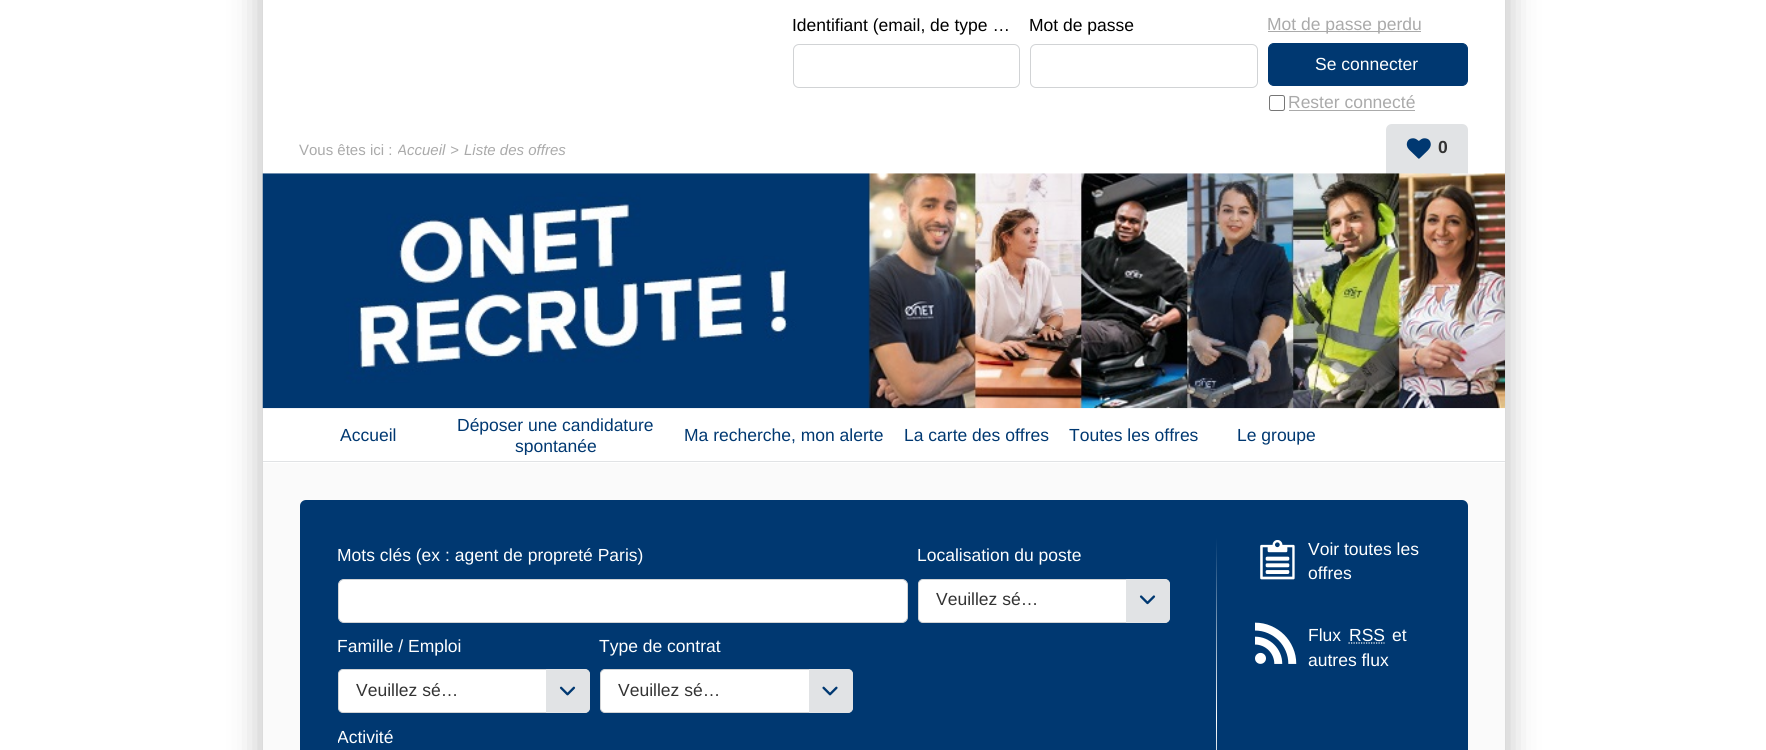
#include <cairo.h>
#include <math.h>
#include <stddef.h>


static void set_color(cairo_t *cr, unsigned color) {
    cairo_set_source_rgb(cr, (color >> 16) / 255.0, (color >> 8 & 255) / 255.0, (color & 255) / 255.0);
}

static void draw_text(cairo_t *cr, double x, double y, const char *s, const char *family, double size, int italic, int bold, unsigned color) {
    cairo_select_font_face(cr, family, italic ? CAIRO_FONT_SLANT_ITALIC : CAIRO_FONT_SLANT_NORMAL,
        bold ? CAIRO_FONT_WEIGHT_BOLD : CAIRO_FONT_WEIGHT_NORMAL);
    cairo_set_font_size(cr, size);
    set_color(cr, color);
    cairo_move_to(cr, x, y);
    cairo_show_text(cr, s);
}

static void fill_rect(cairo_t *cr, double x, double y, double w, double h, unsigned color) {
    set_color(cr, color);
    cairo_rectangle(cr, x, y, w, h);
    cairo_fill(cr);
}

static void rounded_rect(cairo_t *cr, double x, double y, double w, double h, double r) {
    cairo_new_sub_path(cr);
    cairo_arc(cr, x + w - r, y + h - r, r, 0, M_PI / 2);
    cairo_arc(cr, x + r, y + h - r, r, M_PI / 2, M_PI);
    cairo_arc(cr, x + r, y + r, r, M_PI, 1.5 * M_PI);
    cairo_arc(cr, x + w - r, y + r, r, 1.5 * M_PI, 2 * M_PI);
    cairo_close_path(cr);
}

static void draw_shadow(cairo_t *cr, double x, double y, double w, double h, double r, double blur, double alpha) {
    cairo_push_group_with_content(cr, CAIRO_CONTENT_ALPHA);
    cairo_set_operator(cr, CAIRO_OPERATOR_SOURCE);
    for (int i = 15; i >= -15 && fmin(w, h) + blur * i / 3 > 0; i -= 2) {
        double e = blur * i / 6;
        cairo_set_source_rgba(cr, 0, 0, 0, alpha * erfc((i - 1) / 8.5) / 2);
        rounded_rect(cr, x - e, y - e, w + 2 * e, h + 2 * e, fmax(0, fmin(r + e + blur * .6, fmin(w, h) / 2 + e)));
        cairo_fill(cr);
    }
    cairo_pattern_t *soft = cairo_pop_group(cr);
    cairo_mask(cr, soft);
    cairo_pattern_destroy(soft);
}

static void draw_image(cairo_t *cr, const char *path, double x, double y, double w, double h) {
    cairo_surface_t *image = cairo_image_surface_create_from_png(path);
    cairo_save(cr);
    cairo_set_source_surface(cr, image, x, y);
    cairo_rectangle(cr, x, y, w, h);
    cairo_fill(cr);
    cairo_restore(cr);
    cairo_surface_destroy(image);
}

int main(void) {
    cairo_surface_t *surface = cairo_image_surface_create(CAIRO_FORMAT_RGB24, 1766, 750);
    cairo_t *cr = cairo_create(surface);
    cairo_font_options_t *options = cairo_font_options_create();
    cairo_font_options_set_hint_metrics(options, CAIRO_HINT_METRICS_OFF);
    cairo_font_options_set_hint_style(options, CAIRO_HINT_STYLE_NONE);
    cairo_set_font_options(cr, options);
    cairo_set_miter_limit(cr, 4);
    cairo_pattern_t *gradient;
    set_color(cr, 0xFFFFFF);
    cairo_paint(cr);
    cairo_save(cr);
    cairo_set_fill_rule(cr, CAIRO_FILL_RULE_EVEN_ODD);
    cairo_new_path(cr);
    cairo_move_to(cr, 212, 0);
    cairo_line_to(cr, 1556, 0);
    cairo_line_to(cr, 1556, 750);
    cairo_line_to(cr, 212, 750);
    cairo_close_path(cr);
    cairo_move_to(cr, 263, -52);
    cairo_line_to(cr, 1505, -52);
    cairo_line_to(cr, 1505, 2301);
    cairo_line_to(cr, 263, 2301);
    cairo_close_path(cr);
    cairo_clip(cr);
    set_color(cr, 0x000000);
    draw_shadow(cr, 260, -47, 1248, 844, 0, 15.5, 0.25);
    cairo_restore(cr);
    draw_text(cr, 792, 31, "Identifiant (email, de type …", "Liberation Sans", 17.5, 0, 0, 0x000000);
    rounded_rect(cr, 793.5, 44.5, 226, 43, 5.5);
    set_color(cr, 0xD1D3D5);
    cairo_set_line_width(cr, 1);
    cairo_stroke(cr);
    draw_text(cr, 1029, 31, "Mot de passe", "Liberation Sans", 17.5, 0, 0, 0x000000);
    rounded_rect(cr, 1030.5, 44.5, 227, 43, 5.5);
    set_color(cr, 0xD1D3D5);
    cairo_stroke(cr);
    fill_rect(cr, 1268, 31, 153, 1, 0xAAAAAA);
    draw_text(cr, 1267, 30, "Mot de passe perdu", "Liberation Sans", 17.5, 0, 0, 0xAAAAAA);
    rounded_rect(cr, 1269.5, 95.5, 15, 15, 2);
    set_color(cr, 0x767676);
    cairo_stroke(cr);
    draw_text(cr, 1288, 108, "Rester connecté", "Liberation Sans", 17.5, 0, 0, 0xAAAAAA);
    fill_rect(cr, 1289, 110, 126, 1, 0xAAAAAA);
    set_color(cr, 0x003871);
    rounded_rect(cr, 1268.5, 43.5, 199, 42, 5.5);
    cairo_fill_preserve(cr);
    cairo_stroke(cr);
    draw_text(cr, 1315, 70, "Se connecter", "Liberation Sans", 17.5, 0, 0, 0xFFFFFF);
    draw_text(cr, 299, 155, "Vous êtes ici :", "Liberation Sans", 15, 0, 0, 0xAAAAAA);
    cairo_save(cr);
    cairo_rectangle(cr, 398, 140, 66, 21);
    cairo_clip(cr);
    draw_text(cr, 397, 155, "Accueil", "Liberation Sans", 15, 1, 0, 0xAAAAAA);
    cairo_restore(cr);
    draw_text(cr, 450, 155, ">", "Liberation Sans", 15, 1, 0, 0xAAAAAA);
    draw_text(cr, 464, 155, "Liste des offres", "Liberation Sans", 15, 1, 0, 0xAAAAAA);
    set_color(cr, 0xE1E3E5);
    cairo_new_path(cr);
    cairo_move_to(cr, 1392, 124);
    cairo_line_to(cr, 1462, 124);
    cairo_curve_to(cr, 1465.5, 124, 1468, 126.5, 1468, 130);
    cairo_line_to(cr, 1468, 174);
    cairo_line_to(cr, 1386, 174);
    cairo_line_to(cr, 1386, 130);
    cairo_curve_to(cr, 1386, 126.5, 1388.5, 124, 1392, 124);
    cairo_close_path(cr);
    cairo_fill(cr);
    draw_image(cr, "assets/img1.png", 1406, 138, 25, 21);
    draw_image(cr, "assets/img2.png", 1438, 148, 2, 2);
    draw_text(cr, 1438, 153, "0", "Liberation Sans", 17.5, 0, 1, 0x333333);
    draw_image(cr, "assets/img3.png", 262, 173, 1243, 236);
    fill_rect(cr, 263, 461, 1242, 1, 0xE1E3E5);
    draw_text(cr, 340, 441, "Accueil", "Liberation Sans", 17.5, 0, 0, 0x003871);
    draw_text(cr, 457, 431, "Déposer une candidature", "Liberation Sans", 17.5, 0, 0, 0x003871);
    cairo_save(cr);
    cairo_rectangle(cr, 448, 415, 217, 40);
    cairo_clip(cr);
    draw_text(cr, 515, 452, "spontanée", "Liberation Sans", 17.5, 0, 0, 0x003871);
    cairo_restore(cr);
    draw_text(cr, 684, 441, "Ma recherche, mon alerte", "Liberation Sans", 17.5, 0, 0, 0x003871);
    draw_text(cr, 904, 441, "La carte des offres", "Liberation Sans", 17.5, 0, 0, 0x003871);
    draw_text(cr, 1069, 441, "Toutes les offres", "Liberation Sans", 17.5, 0, 0, 0x003871);
    draw_text(cr, 1237, 441, "Le groupe", "Liberation Sans", 17.5, 0, 0, 0x003871);
    fill_rect(cr, 263, 463, 1242, 287, 0xFAFAFA);
    set_color(cr, 0x003871);
    rounded_rect(cr, 300, 500, 1168, 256, 6);
    cairo_fill(cr);
    draw_text(cr, 337, 561, "Mots clés (ex : agent de propreté Paris)", "Liberation Sans", 17.5, 0, 0, 0xFFFFFF);
    rounded_rect(cr, 338.5, 579.5, 569, 43, 5.5);
    cairo_fill_preserve(cr);
    set_color(cr, 0xD1D3D5);
    cairo_stroke(cr);
    draw_text(cr, 917, 561, "Localisation du poste", "Liberation Sans", 17.5, 0, 0, 0xFFFFFF);
    rounded_rect(cr, 918.5, 579.5, 251, 43, 4.5);
    cairo_fill_preserve(cr);
    set_color(cr, 0xD1D3D5);
    cairo_stroke(cr);
    draw_text(cr, 936, 605, "Veuillez sé…", "Liberation Sans", 17.5, 0, 0, 0x333333);
    set_color(cr, 0xE1E3E5);
    cairo_new_path(cr);
    cairo_move_to(cr, 1126, 579);
    cairo_line_to(cr, 1164, 579);
    cairo_curve_to(cr, 1167.5, 579, 1170, 581.5, 1170, 585);
    cairo_line_to(cr, 1170, 617);
    cairo_curve_to(cr, 1170, 620.5, 1167.5, 623, 1164, 623);
    cairo_line_to(cr, 1126, 623);
    cairo_close_path(cr);
    cairo_fill(cr);
    draw_image(cr, "assets/img4.png", 1139, 595, 17, 10);
    gradient = cairo_pattern_create_linear(1217, 538, 1217, 719);
    cairo_pattern_add_color_stop_rgba(gradient, 0, 0, 0.22, 0.443, 1);
    cairo_pattern_add_color_stop_rgba(gradient, 1, 1, 1, 1, 1);
    cairo_set_source(cr, gradient);
    cairo_pattern_destroy(gradient);
    cairo_rectangle(cr, 1216, 538, 1, 181);
    cairo_fill(cr);
    draw_text(cr, 337, 652, "Famille / Emploi", "Liberation Sans", 17.5, 0, 0, 0xFFFFFF);
    rounded_rect(cr, 338.5, 669.5, 251, 43, 4.5);
    cairo_fill_preserve(cr);
    set_color(cr, 0xD1D3D5);
    cairo_stroke(cr);
    draw_text(cr, 356, 696, "Veuillez sé…", "Liberation Sans", 17.5, 0, 0, 0x333333);
    set_color(cr, 0xE1E3E5);
    cairo_new_path(cr);
    cairo_move_to(cr, 546, 669);
    cairo_line_to(cr, 584, 669);
    cairo_curve_to(cr, 587.5, 669, 590, 671.5, 590, 675);
    cairo_line_to(cr, 590, 707);
    cairo_curve_to(cr, 590, 710.5, 587.5, 713, 584, 713);
    cairo_line_to(cr, 546, 713);
    cairo_close_path(cr);
    cairo_fill(cr);
    draw_image(cr, "assets/img5.png", 559, 686, 17, 10);
    draw_text(cr, 599, 652, "Type de contrat", "Liberation Sans", 17.5, 0, 0, 0xFFFFFF);
    rounded_rect(cr, 600.5, 669.5, 252, 43, 4.5);
    cairo_fill_preserve(cr);
    set_color(cr, 0xD1D3D5);
    cairo_stroke(cr);
    draw_text(cr, 618, 696, "Veuillez sé…", "Liberation Sans", 17.5, 0, 0, 0x333333);
    set_color(cr, 0xE1E3E5);
    cairo_new_path(cr);
    cairo_move_to(cr, 809, 669);
    cairo_line_to(cr, 847, 669);
    cairo_curve_to(cr, 850.5, 669, 853, 671.5, 853, 675);
    cairo_line_to(cr, 853, 707);
    cairo_curve_to(cr, 853, 710.5, 850.5, 713, 847, 713);
    cairo_line_to(cr, 809, 713);
    cairo_close_path(cr);
    cairo_fill(cr);
    draw_image(cr, "assets/img6.png", 822, 686, 16, 10);
    cairo_save(cr);
    cairo_rectangle(cr, 338, 725, 462, 25);
    cairo_clip(cr);
    draw_text(cr, 337, 743, "Activité", "Liberation Sans", 17.5, 0, 0, 0xFFFFFF);
    cairo_restore(cr);
    gradient = cairo_pattern_create_linear(1217, 719, 1217, 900);
    cairo_pattern_add_color_stop_rgba(gradient, 0, 1, 1, 1, 1);
    cairo_pattern_add_color_stop_rgba(gradient, 1, 0, 0.22, 0.443, 1);
    cairo_set_source(cr, gradient);
    cairo_pattern_destroy(gradient);
    cairo_rectangle(cr, 1216, 719, 1, 31);
    cairo_fill(cr);
    draw_image(cr, "assets/img7.png", 1260, 540, 35, 40);
    draw_text(cr, 1308, 555, "Voir toutes les", "Liberation Sans", 17.5, 0, 0, 0xFFFFFF);
    draw_text(cr, 1308, 579, "offres", "Liberation Sans", 17.5, 0, 0, 0xFFFFFF);
    draw_image(cr, "assets/img8.png", 1255, 622, 42, 42);
    draw_text(cr, 1308, 641, "Flux", "Liberation Sans", 17.5, 0, 0, 0xFFFFFF);
    draw_text(cr, 1349, 641, "RSS", "Liberation Sans", 17.5, 0, 0, 0xFFFFFF);
    cairo_new_path(cr);
    cairo_move_to(cr, 1348.5, 643);
    cairo_line_to(cr, 1384.5, 643);
    cairo_set_line_width(cr, 1.2);
    cairo_set_dash(cr, (double[]){1.25, 1.25}, 2, 0);
    cairo_stroke(cr);
    draw_text(cr, 1392, 641, "et", "Liberation Sans", 17.5, 0, 0, 0xFFFFFF);
    draw_text(cr, 1308, 666, "autres flux", "Liberation Sans", 17.5, 0, 0, 0xFFFFFF);
    cairo_surface_write_to_png(surface, "output.png");
    cairo_font_options_destroy(options);
    cairo_destroy(cr);
    cairo_surface_destroy(surface);
    return 0;
}
